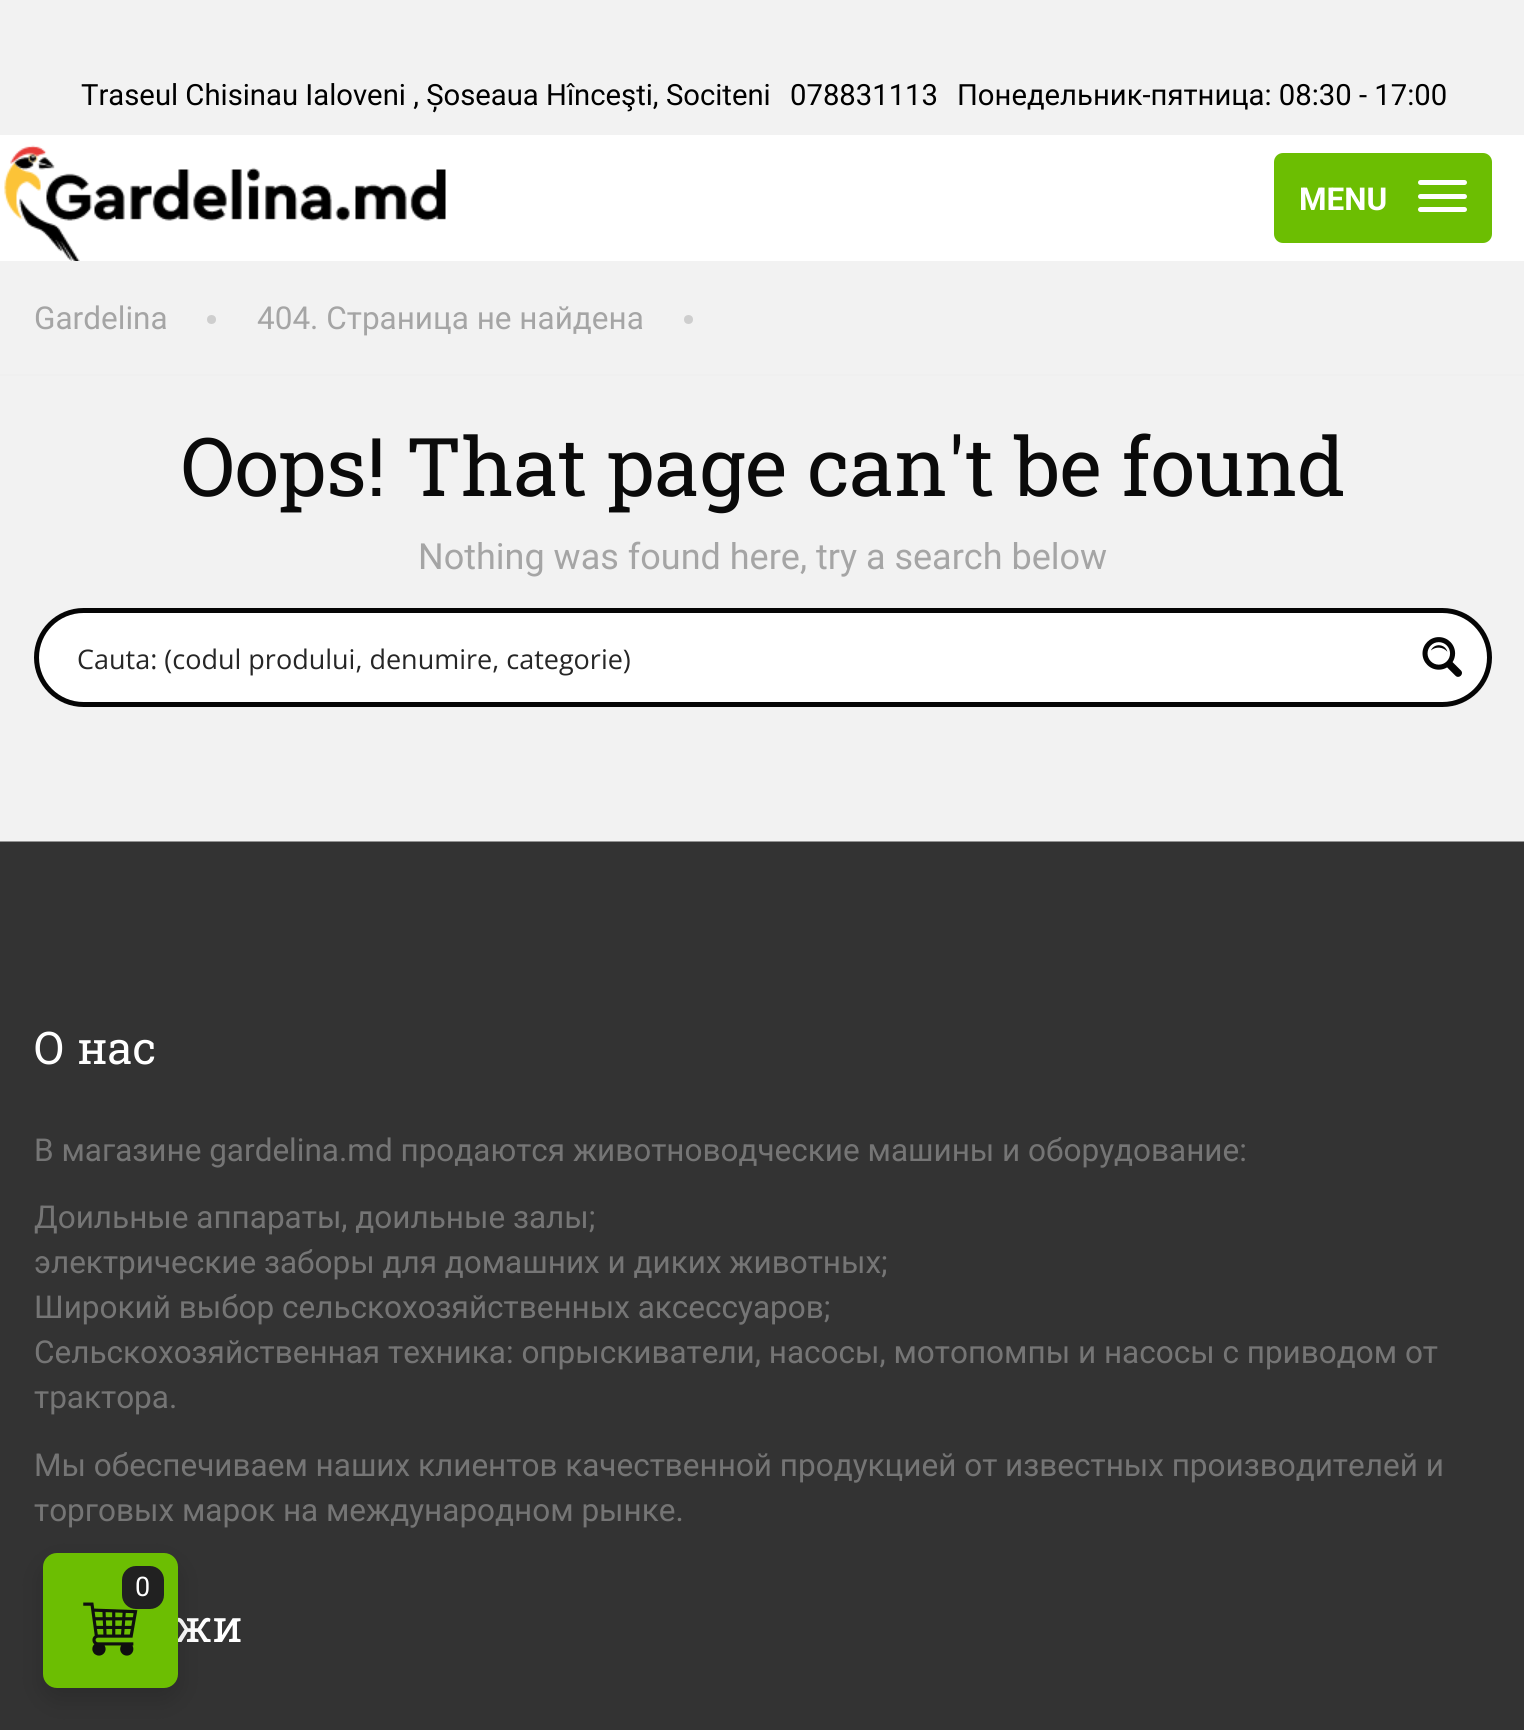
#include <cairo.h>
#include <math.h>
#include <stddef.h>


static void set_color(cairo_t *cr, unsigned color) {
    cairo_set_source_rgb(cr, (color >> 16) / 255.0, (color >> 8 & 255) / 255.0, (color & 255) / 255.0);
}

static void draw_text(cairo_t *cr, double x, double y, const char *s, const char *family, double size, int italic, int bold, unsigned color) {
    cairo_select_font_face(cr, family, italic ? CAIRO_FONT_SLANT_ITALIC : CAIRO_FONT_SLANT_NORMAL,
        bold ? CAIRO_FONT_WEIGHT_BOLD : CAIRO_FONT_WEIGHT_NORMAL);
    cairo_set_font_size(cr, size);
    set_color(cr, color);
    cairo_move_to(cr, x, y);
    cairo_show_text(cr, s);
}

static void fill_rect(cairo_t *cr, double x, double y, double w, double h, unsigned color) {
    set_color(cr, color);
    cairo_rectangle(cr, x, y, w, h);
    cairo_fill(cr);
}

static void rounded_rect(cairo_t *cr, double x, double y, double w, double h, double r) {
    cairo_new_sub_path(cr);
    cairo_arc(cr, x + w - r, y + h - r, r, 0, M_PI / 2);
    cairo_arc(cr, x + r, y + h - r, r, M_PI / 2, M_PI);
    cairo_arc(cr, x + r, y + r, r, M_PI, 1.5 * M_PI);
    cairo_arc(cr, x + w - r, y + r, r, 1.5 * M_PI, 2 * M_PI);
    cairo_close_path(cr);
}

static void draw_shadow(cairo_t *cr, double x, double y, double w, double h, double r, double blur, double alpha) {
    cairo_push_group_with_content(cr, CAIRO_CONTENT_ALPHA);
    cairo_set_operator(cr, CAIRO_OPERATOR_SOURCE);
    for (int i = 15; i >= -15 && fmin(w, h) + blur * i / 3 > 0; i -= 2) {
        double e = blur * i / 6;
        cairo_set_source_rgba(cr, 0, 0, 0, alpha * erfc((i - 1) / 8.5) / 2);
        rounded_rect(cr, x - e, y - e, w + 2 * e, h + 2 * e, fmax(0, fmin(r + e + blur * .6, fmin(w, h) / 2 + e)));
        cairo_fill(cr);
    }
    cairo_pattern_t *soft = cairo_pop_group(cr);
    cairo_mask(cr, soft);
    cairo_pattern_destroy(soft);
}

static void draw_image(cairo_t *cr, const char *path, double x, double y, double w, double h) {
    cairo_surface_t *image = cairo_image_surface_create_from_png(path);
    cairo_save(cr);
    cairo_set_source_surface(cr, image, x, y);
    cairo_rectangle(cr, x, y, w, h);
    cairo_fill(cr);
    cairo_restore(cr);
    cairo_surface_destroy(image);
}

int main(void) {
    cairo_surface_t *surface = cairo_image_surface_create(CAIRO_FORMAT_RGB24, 1524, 1730);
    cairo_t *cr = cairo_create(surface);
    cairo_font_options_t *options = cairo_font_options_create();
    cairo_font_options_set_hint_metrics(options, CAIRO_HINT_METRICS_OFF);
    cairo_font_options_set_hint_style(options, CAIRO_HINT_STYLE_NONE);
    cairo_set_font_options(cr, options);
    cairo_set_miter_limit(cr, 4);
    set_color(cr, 0xFFFFFF);
    cairo_paint(cr);
    fill_rect(cr, 0, 0, 1524, 135, 0xF2F2F2);
    draw_text(cr, 81, 105, "Traseul Chisinau Ialoveni , Șoseaua Hînceşti, Sociteni", "Roboto", 29.25, 0, 0, 0x000000);
    draw_text(cr, 790, 105, "078831113", "Roboto", 29.25, 0, 0, 0x000000);
    draw_text(cr, 957, 105, "Понедельник-пятница: 08:30 - 17:00", "Roboto", 29.25, 0, 0, 0x000000);
    draw_image(cr, "assets/img1.png", 4, 145, 442, 116);
    set_color(cr, 0x6CBE02);
    rounded_rect(cr, 1274, 153, 218, 90, 9);
    cairo_fill(cr);
    draw_text(cr, 1299, 210, "MENU", "Roboto", 31.5, 0, 1, 0xFFFFFF);
    rounded_rect(cr, 1418, 180, 49, 5, 2.5);
    cairo_fill(cr);
    rounded_rect(cr, 1418, 194, 49, 5, 2.5);
    cairo_fill(cr);
    rounded_rect(cr, 1418, 207, 49, 5, 2.5);
    cairo_fill(cr);
    fill_rect(cr, 0, 261, 1524, 113, 0xF2F2F2);
    fill_rect(cr, 0, 374, 1524, 2, 0xF0F0F0);
    draw_text(cr, 34, 329, "Gardelina", "Roboto", 31.5, 0, 0, 0xA5A5A5);
    set_color(cr, 0xCECECE);
    cairo_new_path(cr);
    cairo_arc(cr, 211.5, 319.5, 4.5, 0, 2 * M_PI);
    cairo_fill(cr);
    draw_text(cr, 257, 329, "404. Страница не найдена", "Roboto", 31.5, 0, 0, 0xA5A5A5);
    set_color(cr, 0xCECECE);
    cairo_new_path(cr);
    cairo_arc(cr, 688.5, 319.5, 4.5, 0, 2 * M_PI);
    cairo_fill(cr);
    fill_rect(cr, 0, 376, 1524, 465, 0xF2F2F2);
    draw_text(cr, 181, 496, "Oops! That page can't be found", "Roboto Slab", 81, 0, 0, 0x0A0A0A);
    draw_text(cr, 418, 569, "Nothing was found here, try a search below", "Roboto", 36, 0, 0, 0xA5A5A5);
    set_color(cr, 0xFFFFFF);
    rounded_rect(cr, 36.5, 610.5, 1453, 94, 47);
    cairo_fill_preserve(cr);
    set_color(cr, 0x050505);
    cairo_set_line_width(cr, 5);
    cairo_stroke(cr);
    draw_text(cr, 77, 669, "Cauta: (codul prodului, denumire, categorie)", "Open Sans", 27, 0, 0, 0x262626);
    draw_image(cr, "assets/img2.png", 1422, 637, 40, 40);
    fill_rect(cr, 0, 842, 1524, 888, 0x333333);
    fill_rect(cr, 0, 841, 1524, 1, 0x939393);
    draw_text(cr, 34, 1064, "О нас", "Roboto Slab", 45, 0, 0, 0xFFFFFF);
    draw_text(cr, 34, 1161, "В магазине gardelina.md продаются животноводческие машины и оборудование:", "Roboto", 31.5, 0, 0, 0x757575);
    draw_text(cr, 34, 1228, "Доильные аппараты, доильные залы;", "Roboto", 31.5, 0, 0, 0x757575);
    draw_text(cr, 34, 1273, "электрические заборы для домашних и диких животных;", "Roboto", 31.5, 0, 0, 0x757575);
    draw_text(cr, 34, 1318, "Широкий выбор сельскохозяйственных аксессуаров;", "Roboto", 31.5, 0, 0, 0x757575);
    draw_text(cr, 34, 1363, "Сельскохозяйственная техника: опрыскиватели, насосы, мотопомпы и насосы с приводом от", "Roboto", 31.5, 0, 0, 0x757575);
    draw_text(cr, 34, 1408, "трактора.", "Roboto", 31.5, 0, 0, 0x757575);
    draw_text(cr, 34, 1476, "Мы обеспечиваем наших клиентов качественной продукцией от известных производителей и", "Roboto", 31.5, 0, 0, 0x757575);
    draw_text(cr, 34, 1521, "торговых марок на международном рынке.", "Roboto", 31.5, 0, 0, 0x757575);
    draw_text(cr, 174, 1642, "жи", "Roboto Slab", 45, 0, 0, 0xFFFFFF);
    set_color(cr, 0x000000);
    draw_shadow(cr, 43, 1564, 135, 135, 14, 13.5, 0.17);
    set_color(cr, 0x6CBE02);
    rounded_rect(cr, 43, 1553, 135, 135, 14);
    cairo_fill(cr);
    draw_image(cr, "assets/img3.png", 83, 1602, 55, 54);
    set_color(cr, 0x212121);
    rounded_rect(cr, 122, 1566, 42, 43, 14);
    cairo_fill(cr);
    draw_text(cr, 135, 1596, "0", "Roboto", 27, 0, 0, 0xFFFFFF);
    cairo_surface_write_to_png(surface, "output.png");
    cairo_font_options_destroy(options);
    cairo_destroy(cr);
    cairo_surface_destroy(surface);
    return 0;
}
